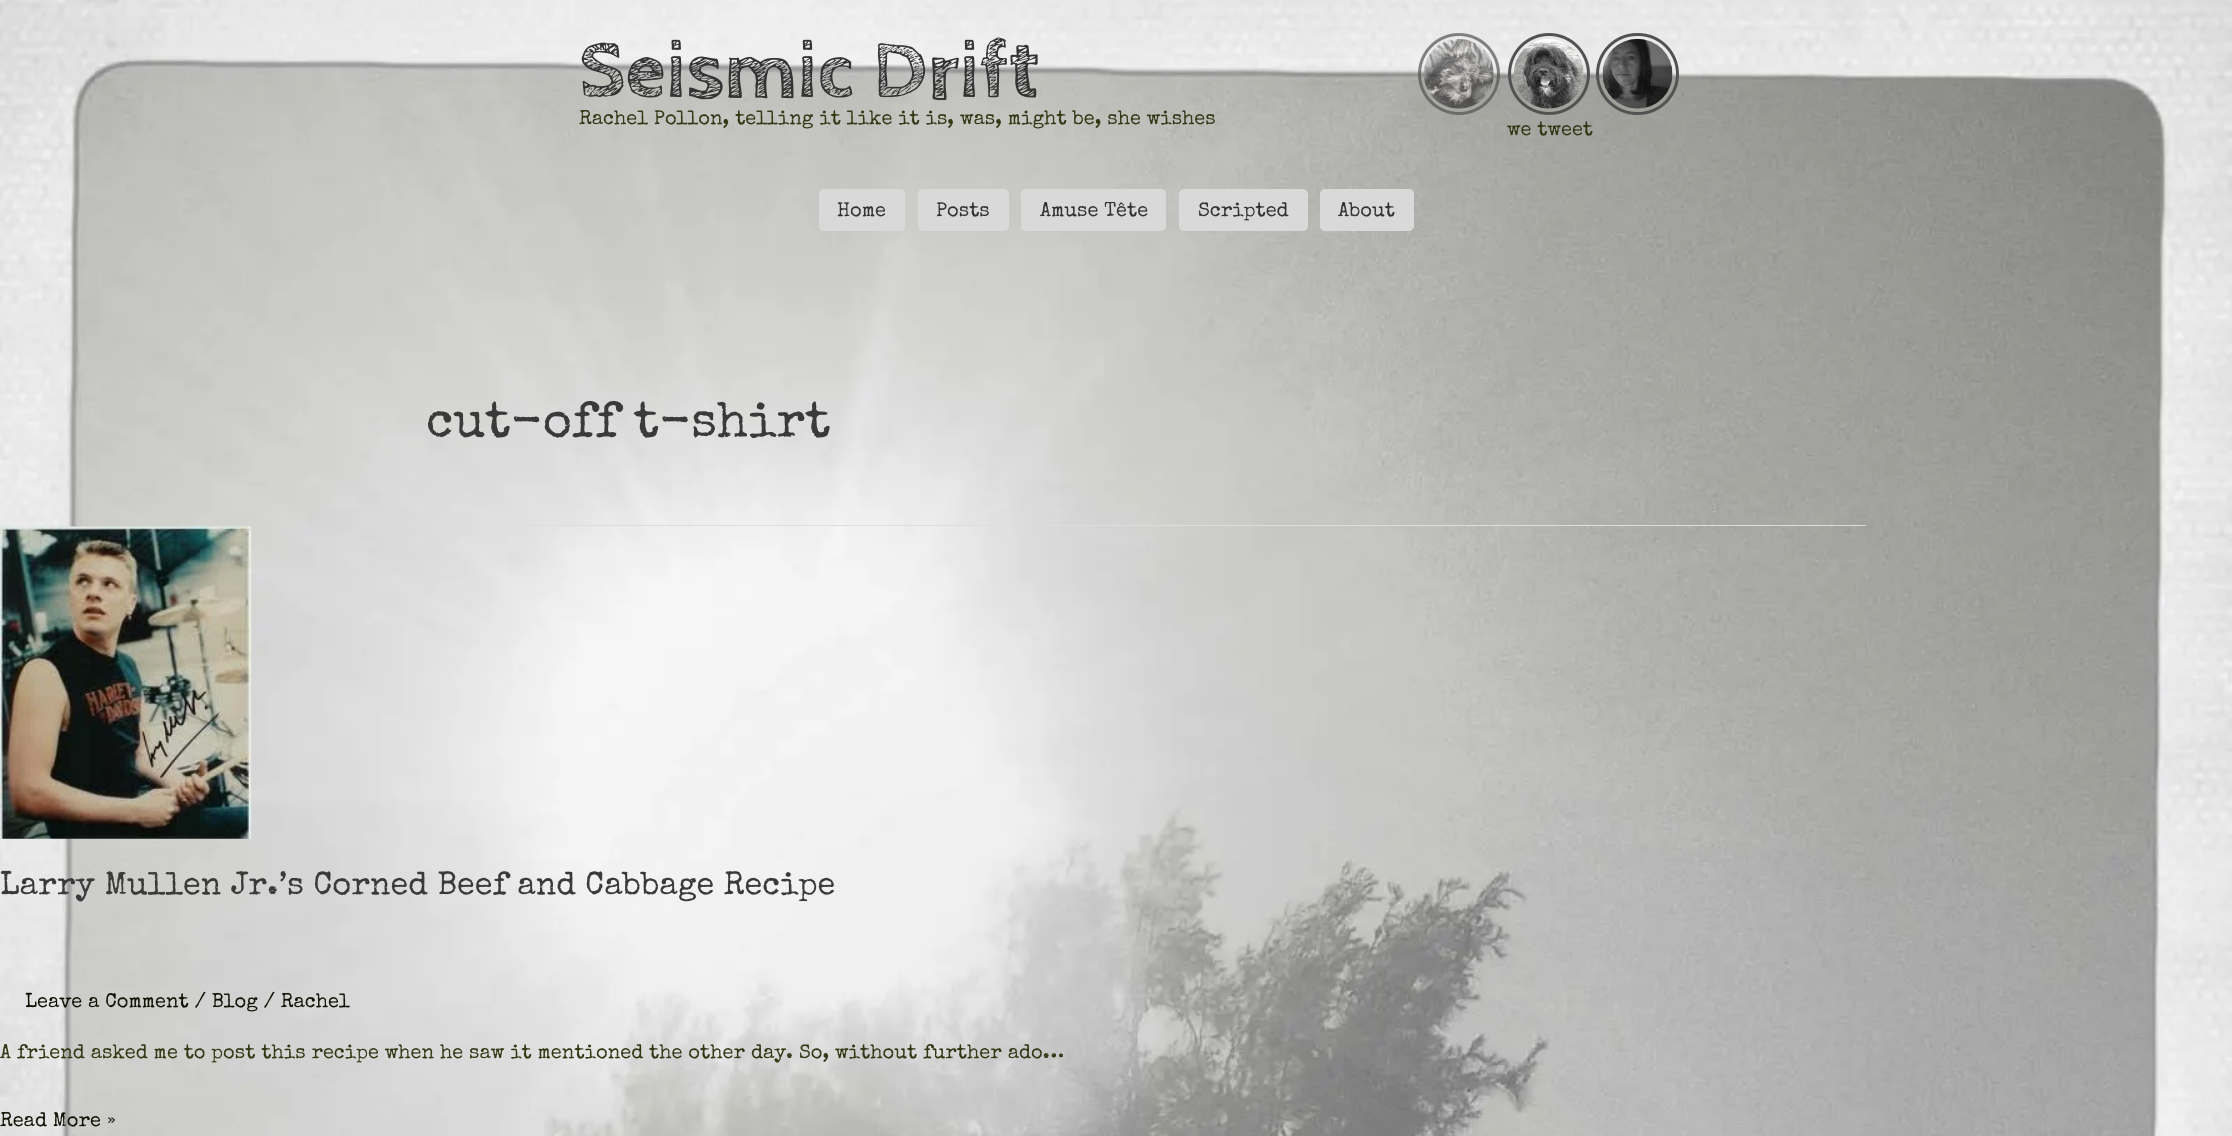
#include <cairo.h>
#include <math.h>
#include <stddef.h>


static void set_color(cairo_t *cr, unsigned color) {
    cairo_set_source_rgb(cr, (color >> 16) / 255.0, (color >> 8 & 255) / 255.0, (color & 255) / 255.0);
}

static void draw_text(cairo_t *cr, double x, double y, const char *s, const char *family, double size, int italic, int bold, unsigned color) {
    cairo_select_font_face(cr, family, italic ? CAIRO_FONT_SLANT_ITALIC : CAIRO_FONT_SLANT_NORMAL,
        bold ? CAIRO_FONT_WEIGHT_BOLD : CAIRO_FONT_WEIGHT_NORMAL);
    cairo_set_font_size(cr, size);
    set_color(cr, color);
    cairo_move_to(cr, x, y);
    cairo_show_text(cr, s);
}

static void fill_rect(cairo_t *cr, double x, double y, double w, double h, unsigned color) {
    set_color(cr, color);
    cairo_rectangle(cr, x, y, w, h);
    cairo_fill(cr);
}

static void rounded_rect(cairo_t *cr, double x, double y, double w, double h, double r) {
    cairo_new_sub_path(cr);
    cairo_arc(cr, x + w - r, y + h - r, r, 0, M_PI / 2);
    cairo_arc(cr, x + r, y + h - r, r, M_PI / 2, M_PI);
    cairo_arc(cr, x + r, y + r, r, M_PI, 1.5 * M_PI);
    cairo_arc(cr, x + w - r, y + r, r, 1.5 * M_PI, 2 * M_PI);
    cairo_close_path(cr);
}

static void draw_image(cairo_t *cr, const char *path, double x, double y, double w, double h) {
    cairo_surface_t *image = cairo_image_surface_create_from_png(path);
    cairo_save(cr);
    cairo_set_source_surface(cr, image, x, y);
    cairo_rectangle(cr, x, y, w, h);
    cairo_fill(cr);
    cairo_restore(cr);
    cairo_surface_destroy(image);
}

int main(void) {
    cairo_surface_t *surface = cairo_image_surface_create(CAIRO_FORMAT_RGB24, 2232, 1136);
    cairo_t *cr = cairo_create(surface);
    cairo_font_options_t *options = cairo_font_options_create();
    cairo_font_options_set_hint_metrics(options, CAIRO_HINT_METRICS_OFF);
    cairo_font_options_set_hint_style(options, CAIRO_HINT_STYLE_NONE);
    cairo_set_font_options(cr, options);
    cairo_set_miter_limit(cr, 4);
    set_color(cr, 0xFFFFFF);
    cairo_paint(cr);
    draw_image(cr, "assets/img1.png", 0, 0, 2232, 1136);
    draw_text(cr, 579, 96, "Seismic Drift", "Cabin Sketch", 82.5, 0, 1, 0x333333);
    draw_text(cr, 579, 124, "Rachel Pollon, telling it like it is, was, might be, she wishes", "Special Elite", 20, 0, 0, 0x323714);
    cairo_new_path(cr);
    cairo_arc(cr, 1459, 74, 39.5, 0, 2 * M_PI);
    cairo_set_source_rgba(cr, 0.322, 0.322, 0.322, 0.7);
    cairo_set_line_width(cr, 3);
    cairo_stroke(cr);
    draw_image(cr, "assets/img2.png", 1424, 38, 70, 71);
    cairo_arc(cr, 1549, 74, 39.5, 0, 2 * M_PI);
    set_color(cr, 0x525252);
    cairo_stroke(cr);
    draw_image(cr, "assets/img3.png", 1514, 39, 70, 70);
    rounded_rect(cr, 1597.5, 34.5, 80, 79, 39.5);
    cairo_stroke(cr);
    draw_image(cr, "assets/img4.png", 1602, 38, 71, 71);
    draw_text(cr, 1507, 135, "we tweet", "Special Elite", 20, 0, 0, 0x323714);
    set_color(cr, 0xD9D9D9);
    rounded_rect(cr, 819, 189, 86, 42, 5);
    cairo_fill(cr);
    draw_text(cr, 837, 216, "Home", "Special Elite", 20, 0, 0, 0x333333);
    set_color(cr, 0xD9D9D9);
    rounded_rect(cr, 918, 189, 91, 42, 5);
    cairo_fill(cr);
    draw_text(cr, 936, 216, "Posts", "Special Elite", 20, 0, 0, 0x333333);
    set_color(cr, 0xD9D9D9);
    rounded_rect(cr, 1021, 189, 145, 42, 5);
    cairo_fill(cr);
    draw_text(cr, 1040, 216, "Amuse Tête", "Special Elite", 20, 0, 0, 0x333333);
    set_color(cr, 0xD9D9D9);
    rounded_rect(cr, 1179, 189, 129, 42, 5);
    cairo_fill(cr);
    draw_text(cr, 1198, 216, "Scripted", "Special Elite", 20, 0, 0, 0x333333);
    set_color(cr, 0xD9D9D9);
    rounded_rect(cr, 1320, 189, 94, 42, 5);
    cairo_fill(cr);
    draw_text(cr, 1338, 216, "About", "Special Elite", 20, 0, 0, 0x333333);
    fill_rect(cr, 366, 525, 1500, 1, 0xDDDDDD);
    draw_text(cr, 426, 436, "cut-off t-shirt", "Special Elite", 50, 0, 0, 0x3A3A3A);
    draw_image(cr, "assets/img5.png", 0, 526, 252, 313);
    draw_text(cr, 0, 894, "Larry Mullen Jr.’s Corned Beef and Cabbage Recipe", "Special Elite", 32.5, 0, 0, 0x3A3A3A);
    draw_text(cr, 25, 1007, "Leave a Comment / Blog / Rachel", "Special Elite", 20, 0, 0, 0x101204);
    draw_text(cr, 0, 1058, "A friend asked me to post this recipe when he saw it mentioned the other day. So, without further ado…", "Special Elite", 20, 0, 0, 0x323714);
    draw_text(cr, 0, 1126, "Read More »", "Special Elite", 20, 0, 0, 0x101204);
    cairo_surface_write_to_png(surface, "output.png");
    cairo_font_options_destroy(options);
    cairo_destroy(cr);
    cairo_surface_destroy(surface);
    return 0;
}
